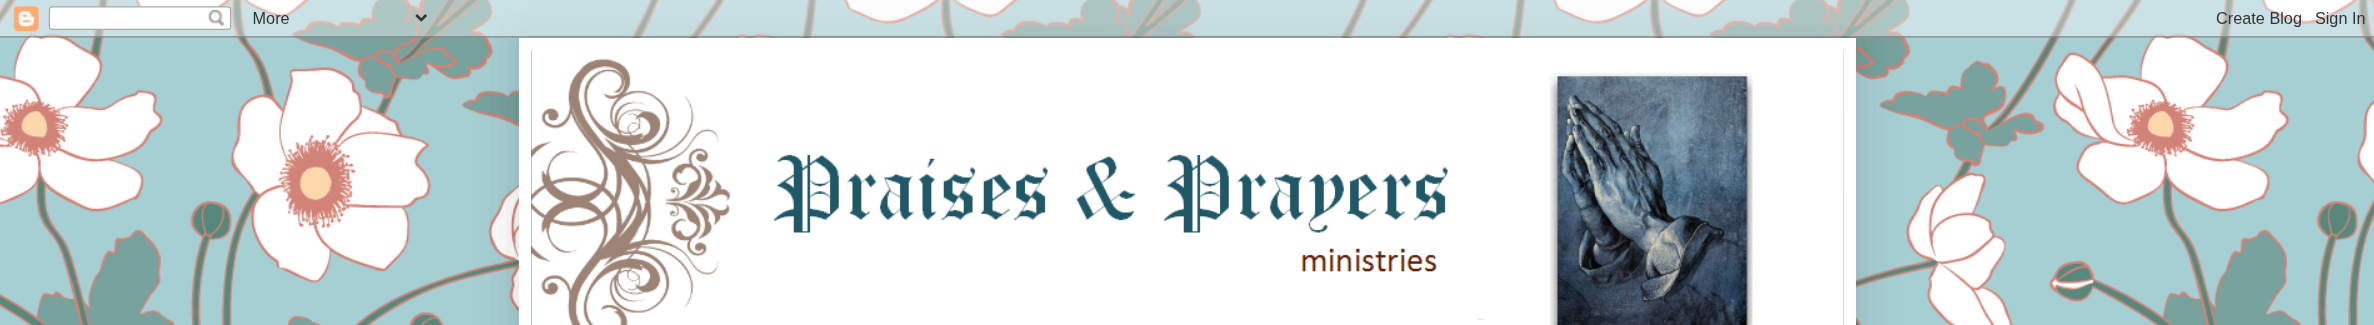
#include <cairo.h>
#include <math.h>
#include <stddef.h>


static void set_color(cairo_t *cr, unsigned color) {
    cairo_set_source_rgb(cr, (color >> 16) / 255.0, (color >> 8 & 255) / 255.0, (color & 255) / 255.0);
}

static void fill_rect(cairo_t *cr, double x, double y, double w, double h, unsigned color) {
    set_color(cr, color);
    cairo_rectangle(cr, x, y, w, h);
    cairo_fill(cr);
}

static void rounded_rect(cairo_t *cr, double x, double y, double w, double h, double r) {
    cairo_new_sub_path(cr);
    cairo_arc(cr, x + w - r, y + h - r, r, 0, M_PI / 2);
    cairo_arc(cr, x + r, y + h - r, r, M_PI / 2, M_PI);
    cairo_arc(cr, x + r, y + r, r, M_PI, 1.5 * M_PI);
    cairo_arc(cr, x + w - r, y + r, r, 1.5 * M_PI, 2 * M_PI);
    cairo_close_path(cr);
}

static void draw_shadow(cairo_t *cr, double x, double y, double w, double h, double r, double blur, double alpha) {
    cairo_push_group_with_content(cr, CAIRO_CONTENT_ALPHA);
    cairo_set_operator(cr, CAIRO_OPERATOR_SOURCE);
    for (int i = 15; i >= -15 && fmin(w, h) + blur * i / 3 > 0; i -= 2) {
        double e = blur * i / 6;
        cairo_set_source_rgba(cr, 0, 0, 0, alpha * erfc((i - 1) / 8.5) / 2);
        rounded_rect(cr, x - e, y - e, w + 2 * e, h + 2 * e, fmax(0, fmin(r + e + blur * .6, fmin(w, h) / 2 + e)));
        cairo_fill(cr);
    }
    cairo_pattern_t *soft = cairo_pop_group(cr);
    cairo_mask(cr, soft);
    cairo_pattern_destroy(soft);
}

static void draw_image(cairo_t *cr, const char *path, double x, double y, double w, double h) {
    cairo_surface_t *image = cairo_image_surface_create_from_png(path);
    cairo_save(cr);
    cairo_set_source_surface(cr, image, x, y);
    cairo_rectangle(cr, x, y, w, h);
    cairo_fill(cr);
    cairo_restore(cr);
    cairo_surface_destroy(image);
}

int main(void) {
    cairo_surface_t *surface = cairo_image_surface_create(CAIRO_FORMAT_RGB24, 2374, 325);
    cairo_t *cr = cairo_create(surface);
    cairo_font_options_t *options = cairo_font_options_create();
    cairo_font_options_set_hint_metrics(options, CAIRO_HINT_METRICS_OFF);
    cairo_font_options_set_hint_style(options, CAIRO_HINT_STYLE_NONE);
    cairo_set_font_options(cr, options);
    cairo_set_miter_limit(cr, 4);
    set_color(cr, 0xFFFFFF);
    cairo_paint(cr);
    draw_image(cr, "assets/img1.png", 0, 0, 2374, 325);
    set_color(cr, 0x000000);
    draw_shadow(cr, 519, 38, 1337, 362, 0, 25, 0.15);
    draw_image(cr, "assets/img2.png", 0, 0, 2374, 38);
    fill_rect(cr, 519, 38, 1337, 287, 0xFFFFFF);
    fill_rect(cr, 531, 50, 1313, 275, 0x498181);
    draw_image(cr, "assets/img3.png", 531, 50, 1313, 159);
    draw_image(cr, "assets/img4.png", 531, 50, 1313, 275);
    cairo_surface_write_to_png(surface, "output.png");
    cairo_font_options_destroy(options);
    cairo_destroy(cr);
    cairo_surface_destroy(surface);
    return 0;
}
